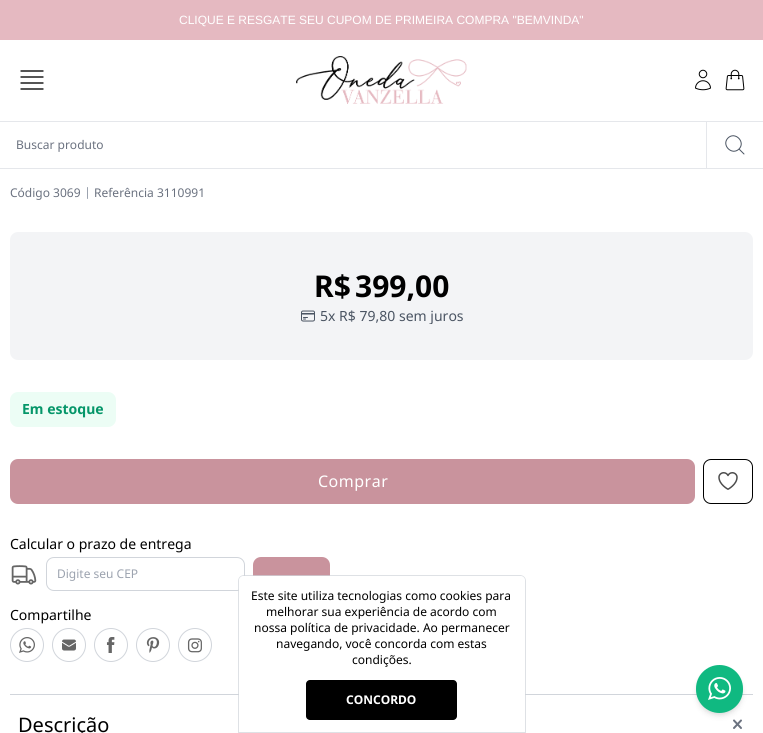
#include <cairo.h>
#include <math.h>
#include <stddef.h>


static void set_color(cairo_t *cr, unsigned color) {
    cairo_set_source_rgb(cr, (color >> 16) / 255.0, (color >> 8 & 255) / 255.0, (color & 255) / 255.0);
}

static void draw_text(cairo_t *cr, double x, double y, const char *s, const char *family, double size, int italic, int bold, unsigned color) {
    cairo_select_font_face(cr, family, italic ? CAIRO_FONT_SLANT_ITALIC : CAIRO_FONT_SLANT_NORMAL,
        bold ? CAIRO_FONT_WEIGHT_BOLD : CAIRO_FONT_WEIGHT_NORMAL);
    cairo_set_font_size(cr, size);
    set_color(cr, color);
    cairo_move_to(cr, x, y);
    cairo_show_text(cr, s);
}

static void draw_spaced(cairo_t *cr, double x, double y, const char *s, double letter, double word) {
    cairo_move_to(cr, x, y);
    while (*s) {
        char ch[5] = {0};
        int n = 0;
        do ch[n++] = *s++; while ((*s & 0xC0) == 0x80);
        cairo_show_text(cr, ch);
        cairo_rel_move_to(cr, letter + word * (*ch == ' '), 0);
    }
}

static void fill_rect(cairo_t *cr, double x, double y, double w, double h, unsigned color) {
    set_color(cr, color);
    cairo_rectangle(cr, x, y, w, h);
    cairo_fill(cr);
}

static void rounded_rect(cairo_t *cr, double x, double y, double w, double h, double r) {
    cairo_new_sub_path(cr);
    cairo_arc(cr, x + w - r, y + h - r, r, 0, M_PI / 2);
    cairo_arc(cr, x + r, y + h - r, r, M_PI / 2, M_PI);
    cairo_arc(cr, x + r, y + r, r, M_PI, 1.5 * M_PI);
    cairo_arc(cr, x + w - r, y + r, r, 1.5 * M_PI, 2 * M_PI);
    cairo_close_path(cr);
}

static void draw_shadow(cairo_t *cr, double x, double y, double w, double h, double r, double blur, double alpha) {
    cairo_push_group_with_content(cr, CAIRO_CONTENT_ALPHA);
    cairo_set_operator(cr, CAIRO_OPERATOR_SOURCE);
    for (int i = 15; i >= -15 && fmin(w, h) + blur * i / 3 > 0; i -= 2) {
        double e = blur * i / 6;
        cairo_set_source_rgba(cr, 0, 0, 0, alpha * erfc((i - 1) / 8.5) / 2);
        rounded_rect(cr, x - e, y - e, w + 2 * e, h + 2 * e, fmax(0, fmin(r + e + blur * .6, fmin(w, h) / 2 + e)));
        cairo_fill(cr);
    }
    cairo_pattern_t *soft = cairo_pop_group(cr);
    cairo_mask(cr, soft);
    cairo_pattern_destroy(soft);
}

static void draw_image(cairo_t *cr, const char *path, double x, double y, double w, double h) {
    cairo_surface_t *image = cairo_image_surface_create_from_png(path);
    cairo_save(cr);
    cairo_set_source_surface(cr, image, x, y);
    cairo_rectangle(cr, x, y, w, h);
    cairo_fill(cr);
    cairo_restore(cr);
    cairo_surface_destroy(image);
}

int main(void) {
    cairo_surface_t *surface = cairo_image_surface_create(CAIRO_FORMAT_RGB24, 763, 733);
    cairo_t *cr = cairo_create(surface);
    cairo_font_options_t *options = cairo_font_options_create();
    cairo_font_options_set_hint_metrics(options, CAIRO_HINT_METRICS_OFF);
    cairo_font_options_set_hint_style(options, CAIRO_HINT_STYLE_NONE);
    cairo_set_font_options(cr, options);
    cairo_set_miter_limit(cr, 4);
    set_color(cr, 0xFFFFFF);
    cairo_paint(cr);
    fill_rect(cr, 0, 0, 763, 40, 0xE5B9C1);
    draw_text(cr, 179, 24, "CLIQUE E RESGATE SEU CUPOM DE PRIMEIRA COMPRA \"BEMVINDA\"", "Liberation Sans", 12, 0, 0, 0xFFFFFF);
    cairo_new_path(cr);
    cairo_move_to(cr, 21, 71);
    cairo_line_to(cr, 43, 71);
    cairo_move_to(cr, 21, 77);
    cairo_line_to(cr, 43, 77);
    cairo_move_to(cr, 21, 83);
    cairo_line_to(cr, 43, 83);
    cairo_move_to(cr, 21, 89);
    cairo_line_to(cr, 43, 89);
    set_color(cr, 0x000000);
    cairo_set_line_width(cr, 1.3);
    cairo_set_line_cap(cr, CAIRO_LINE_CAP_ROUND);
    cairo_set_line_join(cr, CAIRO_LINE_JOIN_ROUND);
    cairo_stroke(cr);
    draw_image(cr, "assets/img1.png", 296, 56, 171, 48);
    draw_image(cr, "assets/img2.png", 695, 69, 16, 22);
    draw_image(cr, "assets/img3.png", 725, 69, 20, 22);
    fill_rect(cr, 0, 121, 763, 1, 0xE5E7EB);
    fill_rect(cr, 0, 168, 763, 1, 0xE5E7EB);
    draw_text(cr, 16, 149, "Buscar produto", "Noto Sans", 12, 0, 0, 0x6B7280);
    fill_rect(cr, 706, 122, 1, 46, 0xE5E7EB);
    cairo_new_path(cr);
    cairo_move_to(cr, 744, 154);
    cairo_line_to(cr, 739, 149);
    cairo_move_to(cr, 739, 149);
    cairo_curve_to(cr, 746, 142, 735, 131, 728, 138);
    cairo_curve_to(cr, 721, 145, 732, 156, 739, 149);
    cairo_close_path(cr);
    set_color(cr, 0x4B5563);
    cairo_set_line_width(cr, 1);
    cairo_stroke(cr);
    draw_text(cr, 10, 197, "Código 3069", "Noto Sans", 12, 0, 0, 0x6B7280);
    set_color(cr, 0x9CA3AF);
    rounded_rect(cr, 87, 187, 1, 12, 0.5);
    cairo_fill(cr);
    draw_text(cr, 94, 197, "Referência 3110991", "Noto Sans", 12, 0, 0, 0x6B7280);
    set_color(cr, 0xF3F4F6);
    rounded_rect(cr, 10, 232, 743, 128, 8);
    cairo_fill(cr);
    draw_text(cr, 314, 297, "R$", "Noto Sans", 30, 0, 1, 0x000000);
    draw_text(cr, 355, 297, "399,00", "Noto Sans", 30, 0, 1, 0x000000);
    draw_image(cr, "assets/img4.png", 301, 310, 14, 12);
    draw_text(cr, 320, 321, "5x R$ 79,80", "Noto Sans", 14, 0, 0, 0x4B5563);
    cairo_save(cr);
    cairo_rectangle(cr, 320, 308, 143, 16);
    cairo_clip(cr);
    draw_text(cr, 399, 321, "sem juros", "Noto Sans", 14, 0, 0, 0x4B5563);
    cairo_restore(cr);
    set_color(cr, 0xECFDF5);
    rounded_rect(cr, 10, 392, 106, 35, 8);
    cairo_fill(cr);
    draw_text(cr, 22, 414, "Em estoque", "Noto Sans", 14, 0, 1, 0x059669);
    set_color(cr, 0xC9939D);
    rounded_rect(cr, 10, 459, 685, 45, 8);
    cairo_fill(cr);
    cairo_select_font_face(cr, "Noto Sans", CAIRO_FONT_SLANT_NORMAL, CAIRO_FONT_WEIGHT_NORMAL);
    cairo_set_font_size(cr, 16);
    set_color(cr, 0xFFFFFF);
    draw_spaced(cr, 318, 487, "Comprar", 0.5, 0);
    rounded_rect(cr, 703.5, 459.5, 49, 44, 7.5);
    set_color(cr, 0x000000);
    cairo_set_line_cap(cr, CAIRO_LINE_CAP_BUTT);
    cairo_set_line_join(cr, CAIRO_LINE_JOIN_MITER);
    cairo_stroke(cr);
    draw_image(cr, "assets/img5.png", 718, 472, 20, 18);
    draw_text(cr, 10, 549, "Calcular o prazo de entrega", "Noto Sans", 14, 0, 0, 0x000000);
    draw_image(cr, "assets/img6.png", 11, 565, 26, 20);
    rounded_rect(cr, 46.5, 557.5, 198, 33, 7.5);
    set_color(cr, 0xD1D5DB);
    cairo_stroke(cr);
    draw_text(cr, 57, 578, "Digite seu CEP", "Noto Sans", 12, 0, 0, 0x9CA3AF);
    set_color(cr, 0xC9939D);
    rounded_rect(cr, 253, 557, 77, 34, 8);
    cairo_fill(cr);
    draw_text(cr, 10, 620, "Compartilhe", "Noto Sans", 14, 0, 0, 0x000000);
    cairo_new_path(cr);
    cairo_arc(cr, 27, 645, 16.5, 0, 2 * M_PI);
    set_color(cr, 0xD1D5DB);
    cairo_stroke(cr);
    draw_image(cr, "assets/img7.png", 19, 637, 16, 16);
    cairo_arc(cr, 69, 645, 16.5, 0, 2 * M_PI);
    cairo_stroke(cr);
    draw_image(cr, "assets/img8.png", 62, 639, 14, 12);
    cairo_arc(cr, 111, 645, 16.5, 0, 2 * M_PI);
    cairo_stroke(cr);
    draw_image(cr, "assets/img9.png", 106, 637, 9, 16);
    cairo_arc(cr, 153, 645, 16.5, 0, 2 * M_PI);
    cairo_stroke(cr);
    draw_image(cr, "assets/img10.png", 146, 637, 14, 16);
    cairo_arc(cr, 195, 645, 16.5, 0, 2 * M_PI);
    cairo_stroke(cr);
    draw_image(cr, "assets/img11.png", 187, 638, 15, 15);
    fill_rect(cr, 10, 694, 743, 1, 0xD1D5DB);
    draw_text(cr, 18, 732, "Descrição", "Noto Sans", 20, 0, 0, 0x000000);
    cairo_new_path(cr);
    cairo_move_to(cr, 734, 728);
    cairo_line_to(cr, 741, 720.5);
    cairo_move_to(cr, 734, 720.5);
    cairo_line_to(cr, 741, 728);
    set_color(cr, 0x6B7280);
    cairo_set_line_width(cr, 2);
    cairo_set_line_cap(cr, CAIRO_LINE_CAP_ROUND);
    cairo_set_line_join(cr, CAIRO_LINE_JOIN_ROUND);
    cairo_stroke(cr);
    cairo_new_path(cr);
    cairo_move_to(cr, 244, 575.5);
    cairo_line_to(cr, 520, 575.5);
    cairo_curve_to(cr, 523, 575.5, 525.5, 578, 525.5, 581);
    cairo_line_to(cr, 525.5, 732.5);
    cairo_line_to(cr, 238.5, 732.5);
    cairo_line_to(cr, 238.5, 581);
    cairo_curve_to(cr, 238.5, 578, 241, 575.5, 244, 575.5);
    cairo_close_path(cr);
    cairo_set_source_rgba(cr, 0.82, 0.835, 0.859, 0.7);
    cairo_set_line_width(cr, 1);
    cairo_set_line_cap(cr, CAIRO_LINE_CAP_BUTT);
    cairo_set_line_join(cr, CAIRO_LINE_JOIN_MITER);
    cairo_stroke(cr);
    set_color(cr, 0xFFFFFF);
    cairo_new_path(cr);
    cairo_move_to(cr, 244, 576);
    cairo_line_to(cr, 520, 576);
    cairo_curve_to(cr, 523, 576, 525, 578, 525, 581);
    cairo_line_to(cr, 525, 732);
    cairo_line_to(cr, 239, 732);
    cairo_line_to(cr, 239, 581);
    cairo_curve_to(cr, 239, 578, 241, 576, 244, 576);
    cairo_close_path(cr);
    cairo_fill(cr);
    draw_text(cr, 251, 600, "Este site utiliza tecnologias como cookies para", "Noto Sans", 12, 0, 0, 0x000000);
    draw_text(cr, 266, 616, "melhorar sua experiência de acordo com", "Noto Sans", 12, 0, 0, 0x000000);
    draw_text(cr, 254, 632, "nossa política de privacidade. Ao permanecer", "Noto Sans", 12, 0, 0, 0x000000);
    draw_text(cr, 276, 648, "navegando, você concorda com estas", "Noto Sans", 12, 0, 0, 0x000000);
    draw_text(cr, 352, 664, "condições.", "Noto Sans", 12, 0, 0, 0x000000);
    rounded_rect(cr, 306, 680, 151, 40, 4);
    cairo_fill(cr);
    draw_text(cr, 346, 704, "CONCORDO", "Noto Sans", 12, 0, 1, 0xFFFFFF);
    set_color(cr, 0x000000);
    draw_shadow(cr, 697, 668, 45, 46, 22.5, 2, 0.06);
    draw_shadow(cr, 697, 670, 45, 46, 22.5, 3, 0.1);
    set_color(cr, 0x10B981);
    rounded_rect(cr, 696, 665, 47, 48, 23.5);
    cairo_fill(cr);
    draw_image(cr, "assets/img12.png", 708, 677, 23, 23);
    cairo_surface_write_to_png(surface, "output.png");
    cairo_font_options_destroy(options);
    cairo_destroy(cr);
    cairo_surface_destroy(surface);
    return 0;
}
